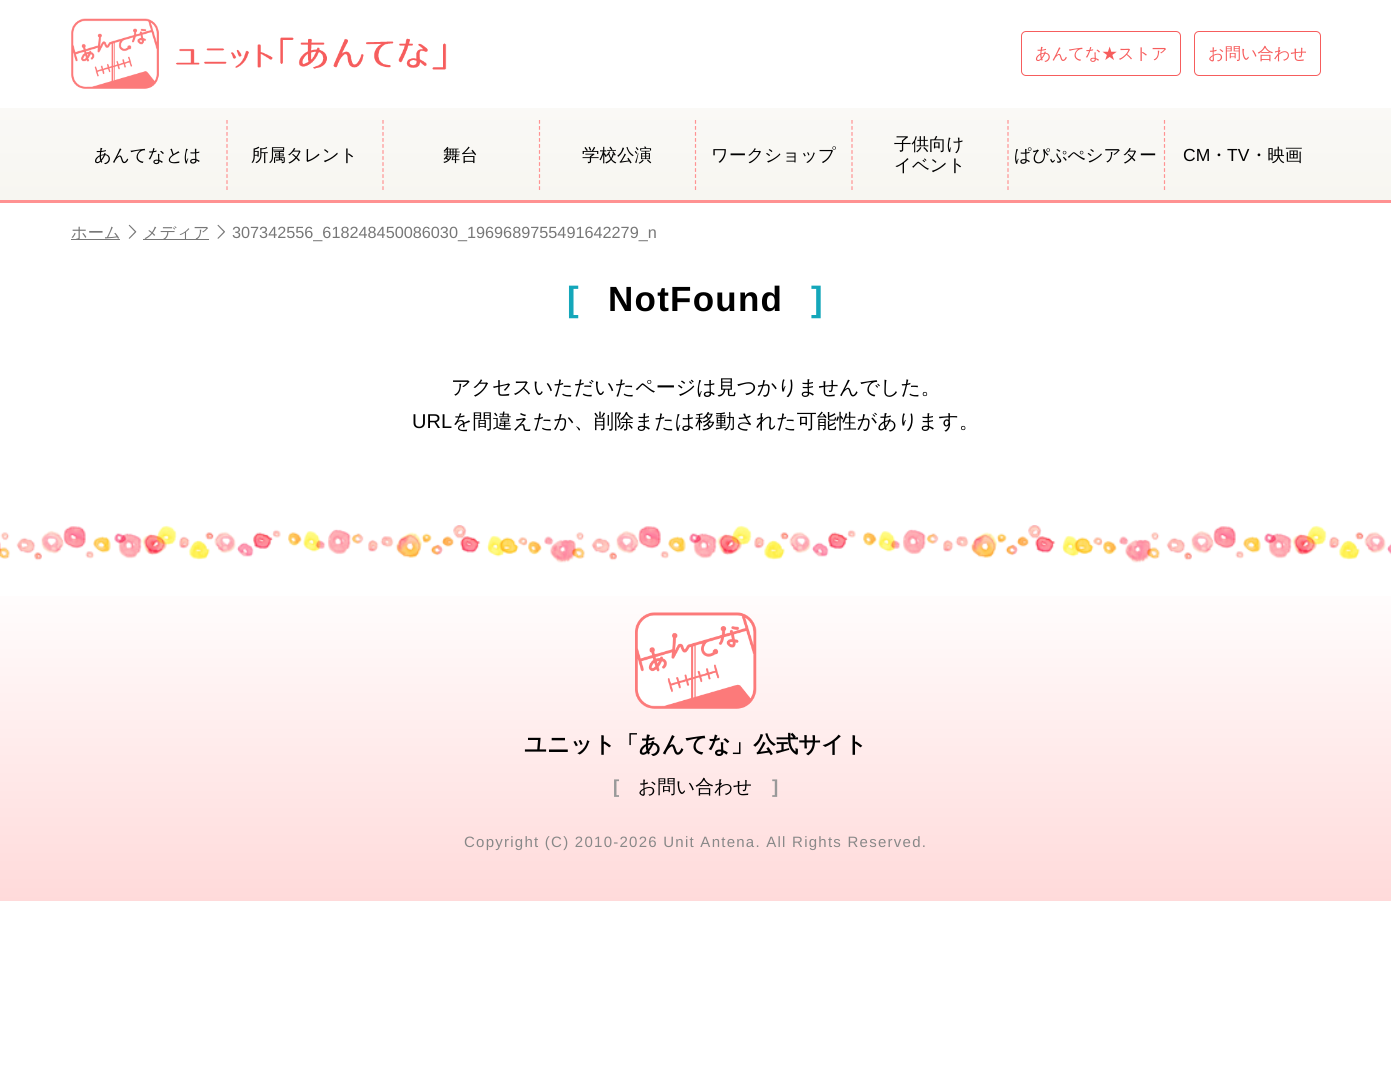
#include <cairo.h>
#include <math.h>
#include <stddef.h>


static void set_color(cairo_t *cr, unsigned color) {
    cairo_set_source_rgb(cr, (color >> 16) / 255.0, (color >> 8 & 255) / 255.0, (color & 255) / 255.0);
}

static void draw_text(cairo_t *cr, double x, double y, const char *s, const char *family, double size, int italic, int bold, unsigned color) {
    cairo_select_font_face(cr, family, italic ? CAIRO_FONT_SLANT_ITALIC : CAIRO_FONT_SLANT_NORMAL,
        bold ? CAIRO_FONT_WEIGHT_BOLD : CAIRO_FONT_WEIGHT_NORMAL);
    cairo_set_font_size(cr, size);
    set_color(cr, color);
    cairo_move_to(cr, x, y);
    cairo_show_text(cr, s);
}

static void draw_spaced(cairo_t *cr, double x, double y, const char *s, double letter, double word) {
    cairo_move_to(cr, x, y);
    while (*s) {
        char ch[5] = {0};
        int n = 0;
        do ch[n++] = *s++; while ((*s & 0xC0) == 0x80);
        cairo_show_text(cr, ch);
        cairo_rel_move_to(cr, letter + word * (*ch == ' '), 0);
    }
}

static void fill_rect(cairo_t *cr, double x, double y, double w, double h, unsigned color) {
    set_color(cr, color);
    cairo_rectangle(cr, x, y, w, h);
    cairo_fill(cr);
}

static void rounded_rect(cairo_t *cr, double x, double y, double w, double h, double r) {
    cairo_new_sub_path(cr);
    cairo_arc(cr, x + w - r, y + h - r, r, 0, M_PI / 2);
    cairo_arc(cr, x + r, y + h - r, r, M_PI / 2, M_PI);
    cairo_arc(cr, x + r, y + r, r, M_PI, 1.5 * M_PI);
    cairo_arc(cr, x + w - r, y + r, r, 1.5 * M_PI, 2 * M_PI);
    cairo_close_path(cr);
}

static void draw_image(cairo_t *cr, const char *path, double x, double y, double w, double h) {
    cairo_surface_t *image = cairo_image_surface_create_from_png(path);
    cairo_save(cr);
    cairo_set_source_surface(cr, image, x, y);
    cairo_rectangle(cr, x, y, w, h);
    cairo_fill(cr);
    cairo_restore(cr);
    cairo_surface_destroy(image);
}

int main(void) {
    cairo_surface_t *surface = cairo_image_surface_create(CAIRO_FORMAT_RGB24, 1391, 1068);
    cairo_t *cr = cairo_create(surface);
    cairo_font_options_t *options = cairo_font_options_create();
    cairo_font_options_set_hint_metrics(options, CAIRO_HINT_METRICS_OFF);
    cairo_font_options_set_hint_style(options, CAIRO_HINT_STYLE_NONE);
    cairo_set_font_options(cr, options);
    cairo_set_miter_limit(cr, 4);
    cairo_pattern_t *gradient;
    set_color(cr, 0xFFFFFF);
    cairo_paint(cr);
    draw_image(cr, "assets/img1.png", 71, 18, 376, 71);
    rounded_rect(cr, 1021.5, 31.5, 159, 44, 4.5);
    set_color(cr, 0xF65D5D);
    cairo_set_line_width(cr, 1);
    cairo_stroke(cr);
    draw_text(cr, 1035, 59, "あんてな★ストア", "WenQuanYi Zen Hei Medium", 16.25, 0, 0, 0xF65D5D);
    rounded_rect(cr, 1194.5, 31.5, 126, 44, 4.5);
    cairo_stroke(cr);
    draw_text(cr, 1208, 59, "お問い合わせ", "WenQuanYi Zen Hei Medium", 16.25, 0, 0, 0xF65D5D);
    gradient = cairo_pattern_create_linear(696, 107, 696, 200);
    cairo_pattern_add_color_stop_rgba(gradient, 0, 0.98, 0.976, 0.965, 1);
    cairo_pattern_add_color_stop_rgba(gradient, 1, 0.969, 0.965, 0.945, 1);
    cairo_set_source(cr, gradient);
    cairo_pattern_destroy(gradient);
    cairo_rectangle(cr, 0, 108, 1391, 92);
    cairo_fill(cr);
    fill_rect(cr, 0, 200, 1391, 3, 0xFF9292);
    cairo_new_path(cr);
    cairo_move_to(cr, 227, 120);
    cairo_line_to(cr, 227, 190);
    cairo_set_line_width(cr, 1.2);
    cairo_set_dash(cr, (double[]){3.75, 2.27}, 2, 0);
    cairo_stroke(cr);
    draw_text(cr, 94, 161, "あんてなとは", "WenQuanYi Zen Hei Medium", 17.5, 0, 0, 0x000000);
    cairo_new_path(cr);
    cairo_move_to(cr, 383, 120);
    cairo_line_to(cr, 383, 190);
    set_color(cr, 0xFF9292);
    cairo_stroke(cr);
    draw_text(cr, 251, 161, "所属タレント", "WenQuanYi Zen Hei Medium", 17.5, 0, 0, 0x000000);
    cairo_new_path(cr);
    cairo_move_to(cr, 539.5, 120);
    cairo_line_to(cr, 539.5, 190);
    set_color(cr, 0xFF9292);
    cairo_stroke(cr);
    draw_text(cr, 443, 161, "舞台", "WenQuanYi Zen Hei Medium", 17.5, 0, 0, 0x000000);
    cairo_new_path(cr);
    cairo_move_to(cr, 695.5, 120);
    cairo_line_to(cr, 695.5, 190);
    set_color(cr, 0xFF9292);
    cairo_stroke(cr);
    draw_text(cr, 582, 161, "学校公演", "WenQuanYi Zen Hei Medium", 17.5, 0, 0, 0x000000);
    cairo_new_path(cr);
    cairo_move_to(cr, 852, 120);
    cairo_line_to(cr, 852, 190);
    set_color(cr, 0xFF9292);
    cairo_stroke(cr);
    draw_text(cr, 711, 161, "ワークショップ", "WenQuanYi Zen Hei Medium", 17.5, 0, 0, 0x000000);
    cairo_new_path(cr);
    cairo_move_to(cr, 1008, 120);
    cairo_line_to(cr, 1008, 190);
    set_color(cr, 0xFF9292);
    cairo_stroke(cr);
    draw_text(cr, 894, 150, "子供向け", "WenQuanYi Zen Hei Medium", 17.5, 0, 0, 0x000000);
    draw_text(cr, 894, 171, "イベント", "WenQuanYi Zen Hei Medium", 17.5, 0, 0, 0x000000);
    cairo_new_path(cr);
    cairo_move_to(cr, 1164.5, 120);
    cairo_line_to(cr, 1164.5, 190);
    set_color(cr, 0xFF9292);
    cairo_stroke(cr);
    draw_text(cr, 1014, 161, "ぱぴぷぺシアター", "WenQuanYi Zen Hei Medium", 17.5, 0, 0, 0x000000);
    draw_text(cr, 1183, 161, "CM", "Liberation Sans", 17.5, 0, 0, 0x000000);
    draw_text(cr, 1210, 161, "・", "WenQuanYi Zen Hei Medium", 17.5, 0, 0, 0x000000);
    draw_text(cr, 1227, 161, "TV", "Liberation Sans", 17.5, 0, 0, 0x000000);
    draw_text(cr, 1250, 161, "・映画", "WenQuanYi Zen Hei Medium", 17.5, 0, 0, 0x000000);
    fill_rect(cr, 71, 239, 49, 1, 0x777777);
    draw_text(cr, 71, 238, "ホーム", "WenQuanYi Zen Hei Medium", 16.25, 0, 0, 0x777777);
    draw_image(cr, "assets/img2.png", 128, 224, 9, 15);
    fill_rect(cr, 143, 239, 66, 1, 0x777777);
    draw_text(cr, 143, 238, "メディア", "WenQuanYi Zen Hei Medium", 16.25, 0, 0, 0x777777);
    draw_image(cr, "assets/img3.png", 217, 224, 8, 15);
    draw_text(cr, 232, 238, "307342556_618248450086030_1969689755491642279_n", "Liberation Sans", 16.25, 0, 0, 0x777777);
    cairo_select_font_face(cr, "Liberation Sans", CAIRO_FONT_SLANT_NORMAL, CAIRO_FONT_WEIGHT_BOLD);
    cairo_set_font_size(cr, 35);
    set_color(cr, 0x14A7BA);
    draw_spaced(cr, 567, 311, "[", 1.25, 0);
    set_color(cr, 0x000000);
    draw_spaced(cr, 608, 311, "NotFound", 1.25, 0);
    set_color(cr, 0x14A7BA);
    draw_spaced(cr, 811, 311, "]", 1.25, 0);
    draw_text(cr, 451, 394, "アクセスいただいたページは見つかりませんでした。", "WenQuanYi Zen Hei Medium", 20, 0, 0, 0x000000);
    draw_text(cr, 412, 428, "URL", "Liberation Sans", 20, 0, 0, 0x000000);
    draw_text(cr, 452, 428, "を間違えたか、削除または移動された可能性があります。", "WenQuanYi Zen Hei Medium", 20, 0, 0, 0x000000);
    gradient = cairo_pattern_create_linear(696, 525, 696, 901);
    cairo_pattern_add_color_stop_rgba(gradient, 0, 1, 1, 1, 1);
    cairo_pattern_add_color_stop_rgba(gradient, 0.13, 1, 1, 1, 1);
    cairo_pattern_add_color_stop_rgba(gradient, 1, 1, 0.855, 0.855, 1);
    cairo_set_source(cr, gradient);
    cairo_pattern_destroy(gradient);
    cairo_rectangle(cr, 0, 596, 1391, 305);
    cairo_fill(cr);
    draw_image(cr, "assets/img4.png", 0, 525, 1391, 38);
    draw_image(cr, "assets/img5.png", 635, 612, 122, 97);
    draw_text(cr, 524, 752, "ユニット「あんてな」公式サイト", "WenQuanYi Zen Hei", 22.5, 0, 1, 0x000000);
    draw_text(cr, 613, 793, "[", "Liberation Sans", 18.75, 0, 1, 0x999999);
    draw_text(cr, 638, 793, "お問い合わせ", "WenQuanYi Zen Hei Medium", 18.75, 0, 0, 0x000000);
    draw_text(cr, 772, 793, "]", "Liberation Sans", 18.75, 0, 1, 0x999999);
    cairo_select_font_face(cr, "Liberation Sans", CAIRO_FONT_SLANT_NORMAL, CAIRO_FONT_WEIGHT_NORMAL);
    cairo_set_font_size(cr, 15);
    set_color(cr, 0x888888);
    draw_spaced(cr, 464, 847, "Copyright (C) 2010-2026 Unit Antena. All Rights Reserved.", 1.25, 0);
    cairo_surface_write_to_png(surface, "output.png");
    cairo_font_options_destroy(options);
    cairo_destroy(cr);
    cairo_surface_destroy(surface);
    return 0;
}
